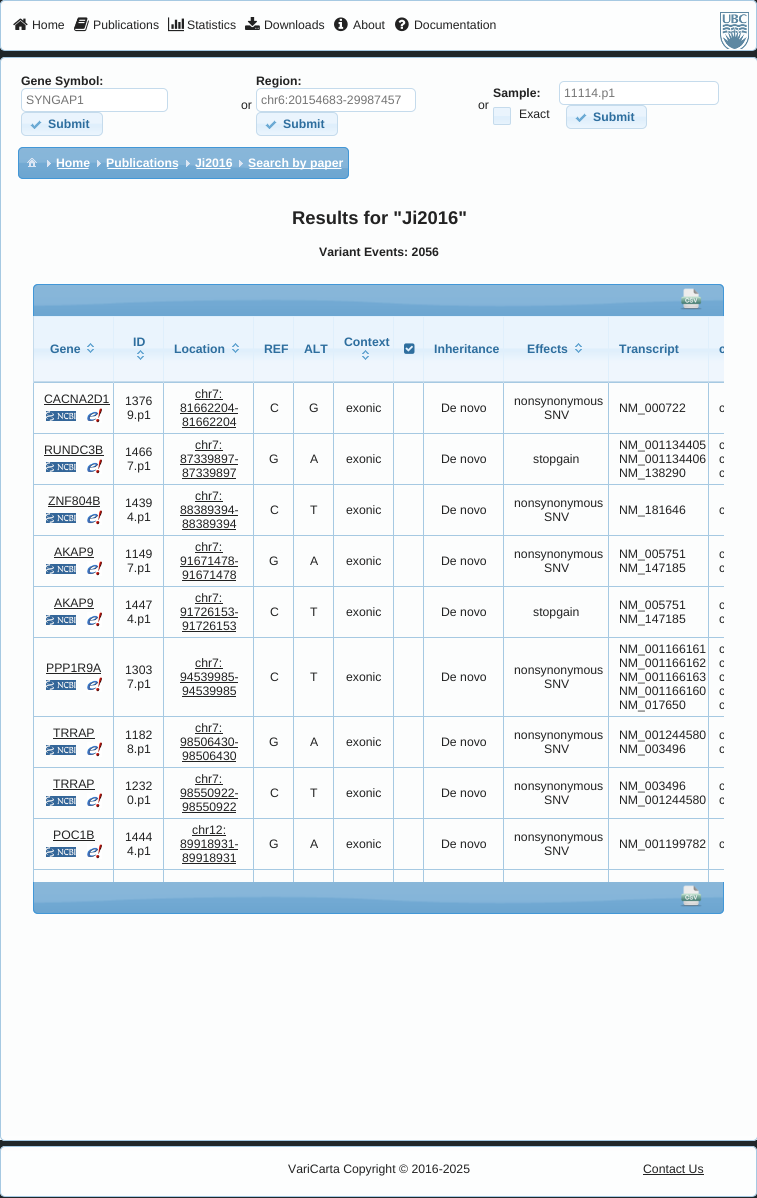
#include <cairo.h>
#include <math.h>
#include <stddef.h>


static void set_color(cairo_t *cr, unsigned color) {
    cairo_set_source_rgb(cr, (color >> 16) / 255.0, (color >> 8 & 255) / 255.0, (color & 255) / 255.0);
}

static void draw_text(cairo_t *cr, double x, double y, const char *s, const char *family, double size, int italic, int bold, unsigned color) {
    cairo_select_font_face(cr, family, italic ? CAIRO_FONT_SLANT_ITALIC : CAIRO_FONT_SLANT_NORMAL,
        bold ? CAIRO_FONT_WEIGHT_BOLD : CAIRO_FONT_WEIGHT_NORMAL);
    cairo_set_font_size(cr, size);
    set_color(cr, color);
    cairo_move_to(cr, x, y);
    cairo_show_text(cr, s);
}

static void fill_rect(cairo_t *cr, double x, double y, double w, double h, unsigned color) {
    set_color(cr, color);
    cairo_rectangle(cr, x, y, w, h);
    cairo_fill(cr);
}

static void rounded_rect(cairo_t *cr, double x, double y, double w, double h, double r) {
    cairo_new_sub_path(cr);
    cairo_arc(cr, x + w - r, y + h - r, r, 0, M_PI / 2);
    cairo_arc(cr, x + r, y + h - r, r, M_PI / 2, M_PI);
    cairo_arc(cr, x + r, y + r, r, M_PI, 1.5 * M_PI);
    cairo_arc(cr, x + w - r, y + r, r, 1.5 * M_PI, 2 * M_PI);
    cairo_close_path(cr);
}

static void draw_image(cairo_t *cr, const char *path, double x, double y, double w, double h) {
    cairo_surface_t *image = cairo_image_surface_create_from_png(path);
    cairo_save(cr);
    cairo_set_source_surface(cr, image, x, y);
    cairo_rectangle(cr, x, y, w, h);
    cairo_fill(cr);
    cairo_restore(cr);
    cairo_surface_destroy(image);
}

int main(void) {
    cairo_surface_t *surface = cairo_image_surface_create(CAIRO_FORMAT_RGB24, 757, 1198);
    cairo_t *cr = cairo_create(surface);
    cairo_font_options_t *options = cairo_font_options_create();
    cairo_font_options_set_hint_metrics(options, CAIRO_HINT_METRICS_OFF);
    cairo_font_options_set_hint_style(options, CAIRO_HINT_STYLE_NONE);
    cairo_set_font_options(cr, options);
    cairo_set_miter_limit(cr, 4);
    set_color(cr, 0x20272A);
    cairo_paint(cr);
    draw_image(cr, "assets/img1.png", 0, 0, 757, 50);
    rounded_rect(cr, 0.5, 0.5, 756, 50, 4.5);
    set_color(cr, 0xA6C9E2);
    cairo_set_line_width(cr, 1);
    cairo_stroke(cr);
    draw_image(cr, "assets/img2.png", 13, 18, 15, 12);
    draw_text(cr, 32, 29, "Home", "Liberation Sans", 12.25, 0, 0, 0x222222);
    draw_image(cr, "assets/img3.png", 74, 17, 15, 15);
    draw_text(cr, 93, 29, "Publications", "Liberation Sans", 12.25, 0, 0, 0x222222);
    draw_image(cr, "assets/img4.png", 168, 17, 16, 15);
    draw_text(cr, 187, 29, "Statistics", "Liberation Sans", 12.25, 0, 0, 0x222222);
    draw_image(cr, "assets/img5.png", 245, 17, 15, 13);
    draw_text(cr, 264, 29, "Downloads", "Liberation Sans", 12.25, 0, 0, 0x222222);
    draw_image(cr, "assets/img6.png", 334, 17, 14, 15);
    draw_text(cr, 353, 29, "About", "Liberation Sans", 12.25, 0, 0, 0x222222);
    draw_image(cr, "assets/img7.png", 395, 17, 14, 15);
    draw_text(cr, 414, 29, "Documentation", "Liberation Sans", 12.25, 0, 0, 0x222222);
    draw_image(cr, "assets/img8.png", 720, 12, 29, 37);
    set_color(cr, 0xFCFDFD);
    rounded_rect(cr, 0, 57, 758, 1084, 5);
    cairo_fill(cr);
    fill_rect(cr, 0, 1136, 757, 4, 0xFDFEFE);
    rounded_rect(cr, 0.5, 57.5, 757, 1083, 4.5);
    set_color(cr, 0xA6C9E2);
    cairo_stroke(cr);
    draw_text(cr, 21, 85, "Gene Symbol:", "Liberation Sans", 12.25, 0, 1, 0x222222);
    set_color(cr, 0xFFFFFF);
    rounded_rect(cr, 21.5, 88.5, 146, 23, 4.5);
    cairo_fill_preserve(cr);
    set_color(cr, 0xC5DBEC);
    cairo_stroke(cr);
    draw_text(cr, 26, 104, "SYNGAP1", "Liberation Sans", 12.25, 0, 0, 0x757575);
    draw_image(cr, "assets/img9.png", 21, 112, 82, 24);
    rounded_rect(cr, 21.5, 112.5, 81, 23, 4.5);
    set_color(cr, 0xC5DBEC);
    cairo_stroke(cr);
    draw_image(cr, "assets/img10.png", 30, 120, 12, 9);
    draw_text(cr, 48, 128, "Submit", "Liberation Sans", 12.25, 0, 1, 0x2E6E9E);
    draw_text(cr, 241, 109, "or", "Liberation Sans", 12.25, 0, 0, 0x222222);
    draw_text(cr, 256, 85, "Region:", "Liberation Sans", 12.25, 0, 1, 0x222222);
    set_color(cr, 0xFFFFFF);
    rounded_rect(cr, 256.5, 88.5, 159, 23, 4.5);
    cairo_fill_preserve(cr);
    set_color(cr, 0xC5DBEC);
    cairo_stroke(cr);
    draw_text(cr, 261, 104, "chr6:20154683-29987457", "Liberation Sans", 12.25, 0, 0, 0x757575);
    draw_image(cr, "assets/img11.png", 256, 112, 82, 24);
    rounded_rect(cr, 256.5, 112.5, 81, 23, 4.5);
    set_color(cr, 0xC5DBEC);
    cairo_stroke(cr);
    draw_image(cr, "assets/img10.png", 265, 120, 12, 9);
    draw_text(cr, 283, 128, "Submit", "Liberation Sans", 12.25, 0, 1, 0x2E6E9E);
    draw_text(cr, 478, 109, "or", "Liberation Sans", 12.25, 0, 0, 0x222222);
    draw_text(cr, 493, 97, "Sample:", "Liberation Sans", 12.25, 0, 1, 0x222222);
    set_color(cr, 0xFFFFFF);
    rounded_rect(cr, 559.5, 81.5, 159, 23, 4.5);
    cairo_fill_preserve(cr);
    set_color(cr, 0xC5DBEC);
    cairo_stroke(cr);
    draw_text(cr, 564, 97, "11114.p1", "Liberation Sans", 12.25, 0, 0, 0x757575);
    draw_image(cr, "assets/img12.png", 493, 107, 18, 18);
    rounded_rect(cr, 493.5, 107.5, 17, 17, 1.5);
    set_color(cr, 0xC5DBEC);
    cairo_stroke(cr);
    draw_text(cr, 519, 118, "Exact", "Liberation Sans", 12.25, 0, 0, 0x222222);
    draw_image(cr, "assets/img13.png", 566, 105, 81, 24);
    rounded_rect(cr, 566.5, 105.5, 80, 23, 4.5);
    set_color(cr, 0xC5DBEC);
    cairo_stroke(cr);
    draw_image(cr, "assets/img10.png", 575, 113, 12, 9);
    draw_text(cr, 593, 121, "Submit", "Liberation Sans", 12.25, 0, 1, 0x2E6E9E);
    draw_image(cr, "assets/img14.png", 18, 147, 331, 32);
    rounded_rect(cr, 18.5, 147.5, 330, 31, 4.5);
    set_color(cr, 0x4297D7);
    cairo_stroke(cr);
    draw_image(cr, "assets/img15.png", 27, 158, 10, 9);
    draw_image(cr, "assets/img16.png", 27, 158, 10, 6);
    draw_image(cr, "assets/img17.png", 47, 160, 4, 7);
    draw_text(cr, 56, 167, "Home", "Liberation Sans", 12.25, 0, 1, 0xFFFFFF);
    cairo_save(cr);
    rounded_rect(cr, 56, 156, 34, 14, 5);
    cairo_clip(cr);
    fill_rect(cr, 56, 168, 34, 1, 0xFFFFFF);
    cairo_restore(cr);
    draw_image(cr, "assets/img17.png", 97, 160, 4, 7);
    draw_text(cr, 106, 167, "Publications", "Liberation Sans", 12.25, 0, 1, 0xFFFFFF);
    cairo_save(cr);
    rounded_rect(cr, 106, 156, 73, 14, 5);
    cairo_clip(cr);
    fill_rect(cr, 106, 168, 73, 1, 0xFFFFFF);
    cairo_restore(cr);
    draw_image(cr, "assets/img18.png", 186, 160, 4, 7);
    draw_text(cr, 195, 167, "Ji2016", "Liberation Sans", 12.25, 0, 1, 0xFFFFFF);
    cairo_save(cr);
    rounded_rect(cr, 195, 156, 37, 14, 5);
    cairo_clip(cr);
    fill_rect(cr, 195, 168, 37, 1, 0xFFFFFF);
    cairo_restore(cr);
    draw_image(cr, "assets/img19.png", 239, 160, 4, 7);
    cairo_save(cr);
    rounded_rect(cr, 248, 156, 95, 14, 5);
    cairo_clip(cr);
    fill_rect(cr, 248, 168, 95, 1, 0xFFFFFF);
    cairo_restore(cr);
    draw_text(cr, 248, 167, "Search by paper", "Liberation Sans", 12.25, 0, 1, 0xFFFFFF);
    draw_text(cr, 292, 224, "Results for \"Ji2016\"", "Liberation Sans", 18.4, 0, 1, 0x222222);
    draw_text(cr, 319, 256, "Variant Events: 2056", "Liberation Sans", 12.25, 0, 1, 0x222222);
    draw_image(cr, "assets/img20.png", 33, 284, 691, 32);
    set_color(cr, 0x4297D7);
    cairo_set_fill_rule(cr, CAIRO_FILL_RULE_EVEN_ODD);
    cairo_new_path(cr);
    cairo_move_to(cr, 38, 284);
    cairo_line_to(cr, 719, 284);
    cairo_curve_to(cr, 722, 284, 724, 286, 724, 289);
    cairo_line_to(cr, 724, 316);
    cairo_line_to(cr, 33, 316);
    cairo_line_to(cr, 33, 289);
    cairo_curve_to(cr, 33, 286, 35, 284, 38, 284);
    cairo_close_path(cr);
    cairo_move_to(cr, 38, 285);
    cairo_line_to(cr, 719, 285);
    cairo_curve_to(cr, 721, 285, 723, 287, 723, 289);
    cairo_line_to(cr, 723, 316);
    cairo_line_to(cr, 34, 316);
    cairo_line_to(cr, 34, 289);
    cairo_curve_to(cr, 34, 287, 36, 285, 38, 285);
    cairo_close_path(cr);
    cairo_fill(cr);
    draw_image(cr, "assets/img21.png", 680, 288, 22, 22);
    fill_rect(cr, 34, 316, 675, 65, 0xDFEFFC);
    draw_image(cr, "assets/img22.png", 114, 317, 49, 64);
    draw_text(cr, 133, 346, "ID", "Liberation Sans", 12.25, 0, 1, 0x2E6E9E);
    draw_image(cr, "assets/img23.png", 137, 350, 7, 10);
    draw_image(cr, "assets/img24.png", 334, 317, 59, 64);
    draw_text(cr, 344, 346, "Context", "Liberation Sans", 12.25, 0, 1, 0x2E6E9E);
    draw_image(cr, "assets/img23.png", 362, 350, 7, 10);
    draw_image(cr, "assets/img25.png", 394, 317, 29, 64);
    draw_image(cr, "assets/img26.png", 404, 343, 11, 11);
    fill_rect(cr, 33, 381, 691, 1, 0xC5DBEC);
    fill_rect(cr, 33, 316, 1, 66, 0xC5DBEC);
    draw_image(cr, "assets/img27.png", 34, 317, 79, 64);
    draw_text(cr, 50, 353, "Gene", "Liberation Sans", 12.25, 0, 1, 0x2E6E9E);
    draw_image(cr, "assets/img28.png", 87, 343, 7, 10);
    draw_image(cr, "assets/img29.png", 164, 317, 89, 64);
    draw_text(cr, 174, 353, "Location", "Liberation Sans", 12.25, 0, 1, 0x2E6E9E);
    draw_image(cr, "assets/img28.png", 232, 343, 7, 10);
    draw_image(cr, "assets/img30.png", 254, 317, 39, 64);
    draw_text(cr, 264, 353, "REF", "Liberation Sans", 12.25, 0, 1, 0x2E6E9E);
    draw_image(cr, "assets/img30.png", 294, 317, 39, 64);
    draw_text(cr, 304, 353, "ALT", "Liberation Sans", 12.25, 0, 1, 0x2E6E9E);
    draw_image(cr, "assets/img27.png", 424, 317, 79, 64);
    draw_text(cr, 434, 353, "Inheritance", "Liberation Sans", 12.25, 0, 1, 0x2E6E9E);
    draw_image(cr, "assets/img31.png", 504, 317, 104, 64);
    draw_text(cr, 527, 353, "Effects", "Liberation Sans", 12.25, 0, 1, 0x2E6E9E);
    draw_image(cr, "assets/img28.png", 575, 343, 7, 10);
    draw_image(cr, "assets/img32.png", 609, 317, 99, 64);
    draw_text(cr, 619, 353, "Transcript", "Liberation Sans", 12.25, 0, 1, 0x2E6E9E);
    fill_rect(cr, 709, 316, 15, 1, 0xDFEFFC);
    draw_image(cr, "assets/img33.png", 709, 317, 15, 64);
    cairo_save(cr);
    cairo_set_fill_rule(cr, CAIRO_FILL_RULE_WINDING);
    cairo_rectangle(cr, 710, 317, 14, 63);
    cairo_clip(cr);
    draw_text(cr, 719, 353, "c", "Liberation Sans", 12.25, 0, 1, 0x2E6E9E);
    cairo_restore(cr);
    fill_rect(cr, 33, 382, 691, 1, 0xA6C9E2);
    fill_rect(cr, 33, 382, 1, 500, 0xA6C9E2);
    fill_rect(cr, 33, 382, 1, 1, 0xC5DBEC);
    fill_rect(cr, 33, 869, 691, 1, 0xA6C9E2);
    fill_rect(cr, 33, 433, 691, 1, 0xA6C9E2);
    fill_rect(cr, 33, 484, 691, 1, 0xA6C9E2);
    fill_rect(cr, 33, 535, 691, 1, 0xA6C9E2);
    fill_rect(cr, 33, 586, 691, 1, 0xA6C9E2);
    fill_rect(cr, 33, 637, 691, 1, 0xA6C9E2);
    fill_rect(cr, 33, 716, 691, 1, 0xA6C9E2);
    fill_rect(cr, 33, 767, 691, 1, 0xA6C9E2);
    fill_rect(cr, 33, 818, 691, 1, 0xA6C9E2);
    fill_rect(cr, 113, 382, 1, 500, 0xA6C9E2);
    fill_rect(cr, 113, 382, 1, 1, 0xC5DBEC);
    fill_rect(cr, 163, 382, 1, 500, 0xA6C9E2);
    fill_rect(cr, 163, 382, 1, 1, 0xC5DBEC);
    fill_rect(cr, 253, 382, 1, 500, 0xA6C9E2);
    fill_rect(cr, 253, 382, 1, 1, 0xC5DBEC);
    fill_rect(cr, 293, 382, 1, 500, 0xA6C9E2);
    fill_rect(cr, 293, 382, 1, 1, 0xC5DBEC);
    fill_rect(cr, 333, 382, 1, 500, 0xA6C9E2);
    fill_rect(cr, 333, 382, 1, 1, 0xC5DBEC);
    fill_rect(cr, 393, 382, 1, 500, 0xA6C9E2);
    fill_rect(cr, 393, 382, 1, 1, 0xC5DBEC);
    fill_rect(cr, 423, 382, 1, 500, 0xA6C9E2);
    fill_rect(cr, 423, 382, 1, 1, 0xC5DBEC);
    fill_rect(cr, 503, 382, 1, 500, 0xA6C9E2);
    fill_rect(cr, 503, 382, 1, 1, 0xC5DBEC);
    fill_rect(cr, 608, 382, 1, 500, 0xA6C9E2);
    fill_rect(cr, 608, 382, 1, 1, 0xC5DBEC);
    fill_rect(cr, 708, 382, 1, 500, 0xA6C9E2);
    fill_rect(cr, 708, 382, 1, 1, 0xC5DBEC);
    draw_text(cr, 44, 403, "CACNA2D1", "Liberation Sans", 12.25, 0, 0, 0x222222);
    fill_rect(cr, 44, 404, 66, 1, 0x222222);
    draw_image(cr, "assets/img34.png", 46, 411, 30, 10);
    draw_image(cr, "assets/img35.png", 87, 408, 15, 15);
    draw_text(cr, 125, 405, "1376", "Liberation Sans", 12.25, 0, 0, 0x222222);
    draw_text(cr, 127, 419, "9.p1", "Liberation Sans", 12.25, 0, 0, 0x222222);
    draw_text(cr, 195, 398, "chr7:", "Liberation Sans", 12.25, 0, 0, 0x222222);
    fill_rect(cr, 195, 399, 28, 1, 0x222222);
    draw_text(cr, 180, 412, "81662204-", "Liberation Sans", 12.25, 0, 0, 0x222222);
    fill_rect(cr, 180, 413, 58, 1, 0x222222);
    draw_text(cr, 182, 426, "81662204", "Liberation Sans", 12.25, 0, 0, 0x222222);
    fill_rect(cr, 182, 427, 54, 1, 0x222222);
    draw_text(cr, 270, 412, "C", "Liberation Sans", 12.25, 0, 0, 0x222222);
    draw_text(cr, 309, 412, "G", "Liberation Sans", 12.25, 0, 0, 0x222222);
    draw_text(cr, 346, 412, "exonic", "Liberation Sans", 12.25, 0, 0, 0x222222);
    draw_text(cr, 441, 412, "De novo", "Liberation Sans", 12.25, 0, 0, 0x222222);
    draw_text(cr, 514, 405, "nonsynonymous", "Liberation Sans", 12.25, 0, 0, 0x222222);
    draw_text(cr, 544, 419, "SNV", "Liberation Sans", 12.25, 0, 0, 0x222222);
    draw_text(cr, 619, 412, "NM_000722", "Liberation Sans", 12.25, 0, 0, 0x222222);
    cairo_save(cr);
    cairo_set_fill_rule(cr, CAIRO_FILL_RULE_WINDING);
    cairo_rectangle(cr, 710, 383, 14, 49);
    cairo_clip(cr);
    draw_text(cr, 719, 412, "c", "Liberation Sans", 12.25, 0, 0, 0x222222);
    cairo_restore(cr);
    draw_text(cr, 44, 454, "RUNDC3B", "Liberation Sans", 12.25, 0, 0, 0x222222);
    fill_rect(cr, 44, 455, 60, 1, 0x222222);
    draw_image(cr, "assets/img34.png", 46, 462, 30, 10);
    draw_image(cr, "assets/img35.png", 87, 459, 15, 15);
    draw_text(cr, 125, 456, "1466", "Liberation Sans", 12.25, 0, 0, 0x222222);
    draw_text(cr, 127, 470, "7.p1", "Liberation Sans", 12.25, 0, 0, 0x222222);
    draw_text(cr, 195, 449, "chr7:", "Liberation Sans", 12.25, 0, 0, 0x222222);
    fill_rect(cr, 195, 450, 28, 1, 0x222222);
    draw_text(cr, 180, 463, "87339897-", "Liberation Sans", 12.25, 0, 0, 0x222222);
    fill_rect(cr, 180, 464, 58, 1, 0x222222);
    draw_text(cr, 182, 477, "87339897", "Liberation Sans", 12.25, 0, 0, 0x222222);
    fill_rect(cr, 182, 478, 54, 1, 0x222222);
    draw_text(cr, 269, 463, "G", "Liberation Sans", 12.25, 0, 0, 0x222222);
    draw_text(cr, 310, 463, "A", "Liberation Sans", 12.25, 0, 0, 0x222222);
    draw_text(cr, 346, 463, "exonic", "Liberation Sans", 12.25, 0, 0, 0x222222);
    draw_text(cr, 441, 463, "De novo", "Liberation Sans", 12.25, 0, 0, 0x222222);
    draw_text(cr, 533, 463, "stopgain", "Liberation Sans", 12.25, 0, 0, 0x222222);
    draw_text(cr, 619, 449, "NM_001134405", "Liberation Sans", 12.25, 0, 0, 0x222222);
    draw_text(cr, 619, 463, "NM_001134406", "Liberation Sans", 12.25, 0, 0, 0x222222);
    draw_text(cr, 619, 477, "NM_138290", "Liberation Sans", 12.25, 0, 0, 0x222222);
    cairo_save(cr);
    cairo_set_fill_rule(cr, CAIRO_FILL_RULE_WINDING);
    cairo_rectangle(cr, 710, 434, 14, 49);
    cairo_clip(cr);
    draw_text(cr, 719, 449, "c", "Liberation Sans", 12.25, 0, 0, 0x222222);
    draw_text(cr, 719, 463, "c", "Liberation Sans", 12.25, 0, 0, 0x222222);
    draw_text(cr, 719, 477, "c", "Liberation Sans", 12.25, 0, 0, 0x222222);
    cairo_restore(cr);
    draw_text(cr, 48, 505, "ZNF804B", "Liberation Sans", 12.25, 0, 0, 0x222222);
    fill_rect(cr, 48, 506, 52, 1, 0x222222);
    draw_image(cr, "assets/img34.png", 46, 513, 30, 10);
    draw_image(cr, "assets/img36.png", 87, 510, 15, 15);
    draw_text(cr, 125, 507, "1439", "Liberation Sans", 12.25, 0, 0, 0x222222);
    draw_text(cr, 127, 521, "4.p1", "Liberation Sans", 12.25, 0, 0, 0x222222);
    draw_text(cr, 195, 500, "chr7:", "Liberation Sans", 12.25, 0, 0, 0x222222);
    fill_rect(cr, 195, 501, 28, 1, 0x222222);
    draw_text(cr, 180, 514, "88389394-", "Liberation Sans", 12.25, 0, 0, 0x222222);
    fill_rect(cr, 180, 515, 58, 1, 0x222222);
    draw_text(cr, 182, 528, "88389394", "Liberation Sans", 12.25, 0, 0, 0x222222);
    fill_rect(cr, 182, 529, 54, 1, 0x222222);
    draw_text(cr, 270, 514, "C", "Liberation Sans", 12.25, 0, 0, 0x222222);
    draw_text(cr, 310, 514, "T", "Liberation Sans", 12.25, 0, 0, 0x222222);
    draw_text(cr, 346, 514, "exonic", "Liberation Sans", 12.25, 0, 0, 0x222222);
    draw_text(cr, 441, 514, "De novo", "Liberation Sans", 12.25, 0, 0, 0x222222);
    draw_text(cr, 514, 507, "nonsynonymous", "Liberation Sans", 12.25, 0, 0, 0x222222);
    draw_text(cr, 544, 521, "SNV", "Liberation Sans", 12.25, 0, 0, 0x222222);
    draw_text(cr, 619, 514, "NM_181646", "Liberation Sans", 12.25, 0, 0, 0x222222);
    cairo_save(cr);
    cairo_set_fill_rule(cr, CAIRO_FILL_RULE_WINDING);
    cairo_rectangle(cr, 710, 485, 14, 49);
    cairo_clip(cr);
    draw_text(cr, 719, 514, "c", "Liberation Sans", 12.25, 0, 0, 0x222222);
    cairo_restore(cr);
    draw_text(cr, 54, 556, "AKAP9", "Liberation Sans", 12.25, 0, 0, 0x222222);
    fill_rect(cr, 54, 557, 40, 1, 0x222222);
    draw_image(cr, "assets/img34.png", 46, 564, 30, 10);
    draw_image(cr, "assets/img35.png", 87, 561, 15, 15);
    draw_text(cr, 125, 558, "1149", "Liberation Sans", 12.25, 0, 0, 0x222222);
    draw_text(cr, 127, 572, "7.p1", "Liberation Sans", 12.25, 0, 0, 0x222222);
    draw_text(cr, 195, 551, "chr7:", "Liberation Sans", 12.25, 0, 0, 0x222222);
    fill_rect(cr, 195, 552, 28, 1, 0x222222);
    draw_text(cr, 180, 565, "91671478-", "Liberation Sans", 12.25, 0, 0, 0x222222);
    fill_rect(cr, 180, 566, 58, 1, 0x222222);
    draw_text(cr, 182, 579, "91671478", "Liberation Sans", 12.25, 0, 0, 0x222222);
    fill_rect(cr, 182, 580, 54, 1, 0x222222);
    draw_text(cr, 269, 565, "G", "Liberation Sans", 12.25, 0, 0, 0x222222);
    draw_text(cr, 310, 565, "A", "Liberation Sans", 12.25, 0, 0, 0x222222);
    draw_text(cr, 346, 565, "exonic", "Liberation Sans", 12.25, 0, 0, 0x222222);
    draw_text(cr, 441, 565, "De novo", "Liberation Sans", 12.25, 0, 0, 0x222222);
    draw_text(cr, 514, 558, "nonsynonymous", "Liberation Sans", 12.25, 0, 0, 0x222222);
    draw_text(cr, 544, 572, "SNV", "Liberation Sans", 12.25, 0, 0, 0x222222);
    draw_text(cr, 619, 558, "NM_005751", "Liberation Sans", 12.25, 0, 0, 0x222222);
    draw_text(cr, 619, 572, "NM_147185", "Liberation Sans", 12.25, 0, 0, 0x222222);
    cairo_save(cr);
    cairo_set_fill_rule(cr, CAIRO_FILL_RULE_WINDING);
    cairo_rectangle(cr, 710, 536, 14, 49);
    cairo_clip(cr);
    draw_text(cr, 719, 558, "c", "Liberation Sans", 12.25, 0, 0, 0x222222);
    draw_text(cr, 719, 572, "c", "Liberation Sans", 12.25, 0, 0, 0x222222);
    cairo_restore(cr);
    draw_text(cr, 54, 607, "AKAP9", "Liberation Sans", 12.25, 0, 0, 0x222222);
    fill_rect(cr, 54, 608, 40, 1, 0x222222);
    draw_image(cr, "assets/img34.png", 46, 615, 30, 10);
    draw_image(cr, "assets/img35.png", 87, 612, 15, 15);
    draw_text(cr, 125, 609, "1447", "Liberation Sans", 12.25, 0, 0, 0x222222);
    draw_text(cr, 127, 623, "4.p1", "Liberation Sans", 12.25, 0, 0, 0x222222);
    draw_text(cr, 195, 602, "chr7:", "Liberation Sans", 12.25, 0, 0, 0x222222);
    fill_rect(cr, 195, 603, 28, 1, 0x222222);
    draw_text(cr, 180, 616, "91726153-", "Liberation Sans", 12.25, 0, 0, 0x222222);
    fill_rect(cr, 180, 617, 58, 1, 0x222222);
    draw_text(cr, 182, 630, "91726153", "Liberation Sans", 12.25, 0, 0, 0x222222);
    fill_rect(cr, 182, 631, 54, 1, 0x222222);
    draw_text(cr, 270, 616, "C", "Liberation Sans", 12.25, 0, 0, 0x222222);
    draw_text(cr, 310, 616, "T", "Liberation Sans", 12.25, 0, 0, 0x222222);
    draw_text(cr, 346, 616, "exonic", "Liberation Sans", 12.25, 0, 0, 0x222222);
    draw_text(cr, 441, 616, "De novo", "Liberation Sans", 12.25, 0, 0, 0x222222);
    draw_text(cr, 533, 616, "stopgain", "Liberation Sans", 12.25, 0, 0, 0x222222);
    draw_text(cr, 619, 609, "NM_005751", "Liberation Sans", 12.25, 0, 0, 0x222222);
    draw_text(cr, 619, 623, "NM_147185", "Liberation Sans", 12.25, 0, 0, 0x222222);
    cairo_save(cr);
    cairo_set_fill_rule(cr, CAIRO_FILL_RULE_WINDING);
    cairo_rectangle(cr, 710, 587, 14, 49);
    cairo_clip(cr);
    draw_text(cr, 719, 609, "c", "Liberation Sans", 12.25, 0, 0, 0x222222);
    draw_text(cr, 719, 623, "c", "Liberation Sans", 12.25, 0, 0, 0x222222);
    cairo_restore(cr);
    draw_text(cr, 46, 672, "PPP1R9A", "Liberation Sans", 12.25, 0, 0, 0x222222);
    fill_rect(cr, 46, 673, 55, 1, 0x222222);
    draw_image(cr, "assets/img34.png", 46, 680, 30, 10);
    draw_image(cr, "assets/img35.png", 87, 677, 15, 15);
    draw_text(cr, 125, 674, "1303", "Liberation Sans", 12.25, 0, 0, 0x222222);
    draw_text(cr, 127, 688, "7.p1", "Liberation Sans", 12.25, 0, 0, 0x222222);
    draw_text(cr, 195, 667, "chr7:", "Liberation Sans", 12.25, 0, 0, 0x222222);
    fill_rect(cr, 195, 668, 28, 1, 0x222222);
    draw_text(cr, 180, 681, "94539985-", "Liberation Sans", 12.25, 0, 0, 0x222222);
    fill_rect(cr, 180, 682, 58, 1, 0x222222);
    draw_text(cr, 182, 695, "94539985", "Liberation Sans", 12.25, 0, 0, 0x222222);
    fill_rect(cr, 182, 696, 54, 1, 0x222222);
    draw_text(cr, 270, 681, "C", "Liberation Sans", 12.25, 0, 0, 0x222222);
    draw_text(cr, 310, 681, "T", "Liberation Sans", 12.25, 0, 0, 0x222222);
    draw_text(cr, 346, 681, "exonic", "Liberation Sans", 12.25, 0, 0, 0x222222);
    draw_text(cr, 441, 681, "De novo", "Liberation Sans", 12.25, 0, 0, 0x222222);
    draw_text(cr, 514, 674, "nonsynonymous", "Liberation Sans", 12.25, 0, 0, 0x222222);
    draw_text(cr, 544, 688, "SNV", "Liberation Sans", 12.25, 0, 0, 0x222222);
    draw_text(cr, 619, 653, "NM_001166161", "Liberation Sans", 12.25, 0, 0, 0x222222);
    draw_text(cr, 619, 667, "NM_001166162", "Liberation Sans", 12.25, 0, 0, 0x222222);
    draw_text(cr, 619, 681, "NM_001166163", "Liberation Sans", 12.25, 0, 0, 0x222222);
    draw_text(cr, 619, 695, "NM_001166160", "Liberation Sans", 12.25, 0, 0, 0x222222);
    draw_text(cr, 619, 709, "NM_017650", "Liberation Sans", 12.25, 0, 0, 0x222222);
    cairo_save(cr);
    cairo_set_fill_rule(cr, CAIRO_FILL_RULE_WINDING);
    cairo_rectangle(cr, 710, 638, 14, 77);
    cairo_clip(cr);
    draw_text(cr, 719, 653, "c", "Liberation Sans", 12.25, 0, 0, 0x222222);
    draw_text(cr, 719, 667, "c", "Liberation Sans", 12.25, 0, 0, 0x222222);
    draw_text(cr, 719, 681, "c", "Liberation Sans", 12.25, 0, 0, 0x222222);
    draw_text(cr, 719, 695, "c", "Liberation Sans", 12.25, 0, 0, 0x222222);
    draw_text(cr, 719, 709, "c", "Liberation Sans", 12.25, 0, 0, 0x222222);
    cairo_restore(cr);
    draw_text(cr, 53, 737, "TRRAP", "Liberation Sans", 12.25, 0, 0, 0x222222);
    fill_rect(cr, 53, 738, 42, 1, 0x222222);
    draw_image(cr, "assets/img34.png", 46, 745, 30, 10);
    draw_image(cr, "assets/img35.png", 87, 742, 15, 15);
    draw_text(cr, 125, 739, "1182", "Liberation Sans", 12.25, 0, 0, 0x222222);
    draw_text(cr, 127, 753, "8.p1", "Liberation Sans", 12.25, 0, 0, 0x222222);
    draw_text(cr, 195, 732, "chr7:", "Liberation Sans", 12.25, 0, 0, 0x222222);
    fill_rect(cr, 195, 733, 28, 1, 0x222222);
    draw_text(cr, 180, 746, "98506430-", "Liberation Sans", 12.25, 0, 0, 0x222222);
    fill_rect(cr, 180, 747, 58, 1, 0x222222);
    draw_text(cr, 182, 760, "98506430", "Liberation Sans", 12.25, 0, 0, 0x222222);
    fill_rect(cr, 182, 761, 54, 1, 0x222222);
    draw_text(cr, 269, 746, "G", "Liberation Sans", 12.25, 0, 0, 0x222222);
    draw_text(cr, 310, 746, "A", "Liberation Sans", 12.25, 0, 0, 0x222222);
    draw_text(cr, 346, 746, "exonic", "Liberation Sans", 12.25, 0, 0, 0x222222);
    draw_text(cr, 441, 746, "De novo", "Liberation Sans", 12.25, 0, 0, 0x222222);
    draw_text(cr, 514, 739, "nonsynonymous", "Liberation Sans", 12.25, 0, 0, 0x222222);
    draw_text(cr, 544, 753, "SNV", "Liberation Sans", 12.25, 0, 0, 0x222222);
    draw_text(cr, 619, 739, "NM_001244580", "Liberation Sans", 12.25, 0, 0, 0x222222);
    draw_text(cr, 619, 753, "NM_003496", "Liberation Sans", 12.25, 0, 0, 0x222222);
    cairo_save(cr);
    cairo_set_fill_rule(cr, CAIRO_FILL_RULE_WINDING);
    cairo_rectangle(cr, 710, 717, 14, 49);
    cairo_clip(cr);
    draw_text(cr, 719, 739, "c", "Liberation Sans", 12.25, 0, 0, 0x222222);
    draw_text(cr, 719, 753, "c", "Liberation Sans", 12.25, 0, 0, 0x222222);
    cairo_restore(cr);
    draw_text(cr, 53, 788, "TRRAP", "Liberation Sans", 12.25, 0, 0, 0x222222);
    fill_rect(cr, 53, 789, 42, 1, 0x222222);
    draw_image(cr, "assets/img34.png", 46, 796, 30, 10);
    draw_image(cr, "assets/img35.png", 87, 793, 15, 15);
    draw_text(cr, 125, 790, "1232", "Liberation Sans", 12.25, 0, 0, 0x222222);
    draw_text(cr, 127, 804, "0.p1", "Liberation Sans", 12.25, 0, 0, 0x222222);
    draw_text(cr, 195, 783, "chr7:", "Liberation Sans", 12.25, 0, 0, 0x222222);
    fill_rect(cr, 195, 784, 28, 1, 0x222222);
    draw_text(cr, 180, 797, "98550922-", "Liberation Sans", 12.25, 0, 0, 0x222222);
    fill_rect(cr, 180, 798, 58, 1, 0x222222);
    draw_text(cr, 182, 811, "98550922", "Liberation Sans", 12.25, 0, 0, 0x222222);
    fill_rect(cr, 182, 812, 54, 1, 0x222222);
    draw_text(cr, 270, 797, "C", "Liberation Sans", 12.25, 0, 0, 0x222222);
    draw_text(cr, 310, 797, "T", "Liberation Sans", 12.25, 0, 0, 0x222222);
    draw_text(cr, 346, 797, "exonic", "Liberation Sans", 12.25, 0, 0, 0x222222);
    draw_text(cr, 441, 797, "De novo", "Liberation Sans", 12.25, 0, 0, 0x222222);
    draw_text(cr, 514, 790, "nonsynonymous", "Liberation Sans", 12.25, 0, 0, 0x222222);
    draw_text(cr, 544, 804, "SNV", "Liberation Sans", 12.25, 0, 0, 0x222222);
    draw_text(cr, 619, 790, "NM_003496", "Liberation Sans", 12.25, 0, 0, 0x222222);
    draw_text(cr, 619, 804, "NM_001244580", "Liberation Sans", 12.25, 0, 0, 0x222222);
    cairo_save(cr);
    cairo_set_fill_rule(cr, CAIRO_FILL_RULE_WINDING);
    cairo_rectangle(cr, 710, 768, 14, 49);
    cairo_clip(cr);
    draw_text(cr, 719, 790, "c", "Liberation Sans", 12.25, 0, 0, 0x222222);
    draw_text(cr, 719, 804, "c", "Liberation Sans", 12.25, 0, 0, 0x222222);
    cairo_restore(cr);
    draw_text(cr, 53, 839, "POC1B", "Liberation Sans", 12.25, 0, 0, 0x222222);
    fill_rect(cr, 53, 840, 42, 1, 0x222222);
    draw_image(cr, "assets/img34.png", 46, 847, 30, 10);
    draw_image(cr, "assets/img35.png", 87, 844, 15, 15);
    draw_text(cr, 125, 841, "1444", "Liberation Sans", 12.25, 0, 0, 0x222222);
    draw_text(cr, 127, 855, "4.p1", "Liberation Sans", 12.25, 0, 0, 0x222222);
    draw_text(cr, 192, 834, "chr12:", "Liberation Sans", 12.25, 0, 0, 0x222222);
    fill_rect(cr, 192, 835, 34, 1, 0x222222);
    draw_text(cr, 180, 848, "89918931-", "Liberation Sans", 12.25, 0, 0, 0x222222);
    fill_rect(cr, 180, 849, 58, 1, 0x222222);
    draw_text(cr, 182, 862, "89918931", "Liberation Sans", 12.25, 0, 0, 0x222222);
    fill_rect(cr, 182, 863, 54, 1, 0x222222);
    draw_text(cr, 269, 848, "G", "Liberation Sans", 12.25, 0, 0, 0x222222);
    draw_text(cr, 310, 848, "A", "Liberation Sans", 12.25, 0, 0, 0x222222);
    draw_text(cr, 346, 848, "exonic", "Liberation Sans", 12.25, 0, 0, 0x222222);
    draw_text(cr, 441, 848, "De novo", "Liberation Sans", 12.25, 0, 0, 0x222222);
    draw_text(cr, 514, 841, "nonsynonymous", "Liberation Sans", 12.25, 0, 0, 0x222222);
    draw_text(cr, 544, 855, "SNV", "Liberation Sans", 12.25, 0, 0, 0x222222);
    draw_text(cr, 619, 848, "NM_001199782", "Liberation Sans", 12.25, 0, 0, 0x222222);
    cairo_save(cr);
    cairo_set_fill_rule(cr, CAIRO_FILL_RULE_WINDING);
    cairo_rectangle(cr, 710, 819, 14, 49);
    cairo_clip(cr);
    draw_text(cr, 719, 848, "c", "Liberation Sans", 12.25, 0, 0, 0x222222);
    cairo_restore(cr);
    draw_image(cr, "assets/img37.png", 33, 882, 691, 32);
    set_color(cr, 0x4297D7);
    cairo_new_path(cr);
    cairo_move_to(cr, 33, 882);
    cairo_line_to(cr, 724, 882);
    cairo_line_to(cr, 724, 909);
    cairo_curve_to(cr, 724, 912, 722, 914, 719, 914);
    cairo_line_to(cr, 38, 914);
    cairo_curve_to(cr, 35, 914, 33, 912, 33, 909);
    cairo_close_path(cr);
    cairo_move_to(cr, 34, 882);
    cairo_line_to(cr, 723, 882);
    cairo_line_to(cr, 723, 909);
    cairo_curve_to(cr, 723, 911, 721, 913, 719, 913);
    cairo_line_to(cr, 38, 913);
    cairo_curve_to(cr, 36, 913, 34, 911, 34, 909);
    cairo_close_path(cr);
    cairo_fill(cr);
    draw_image(cr, "assets/img21.png", 680, 885, 22, 22);
    draw_image(cr, "assets/img1.png", 0, 1146, 757, 50);
    rounded_rect(cr, 0.5, 1146.5, 756, 50, 4.5);
    set_color(cr, 0xA6C9E2);
    cairo_stroke(cr);
    draw_text(cr, 288, 1173, "VariCarta Copyright © 2016-2025", "Liberation Sans", 12.25, 0, 0, 0x222222);
    draw_text(cr, 643, 1173, "Contact Us", "Liberation Sans", 12.25, 0, 0, 0x222222);
    fill_rect(cr, 643, 1174, 61, 1, 0x222222);
    cairo_surface_write_to_png(surface, "output.png");
    cairo_font_options_destroy(options);
    cairo_destroy(cr);
    cairo_surface_destroy(surface);
    return 0;
}
